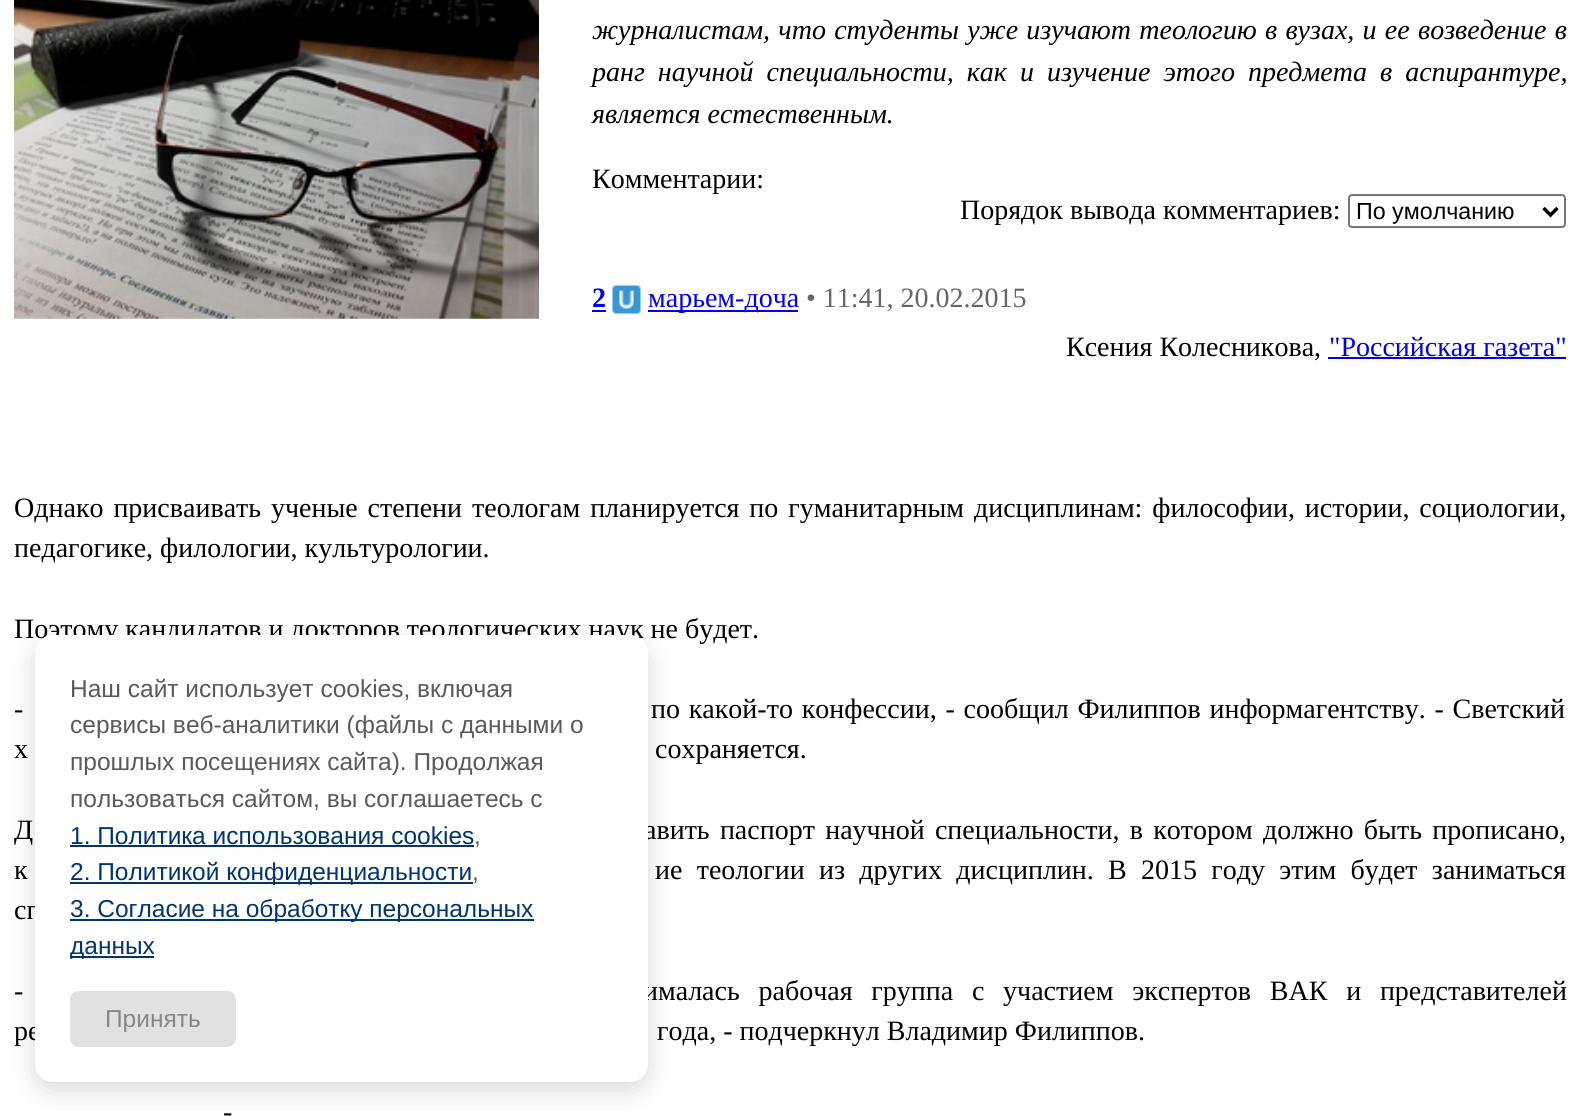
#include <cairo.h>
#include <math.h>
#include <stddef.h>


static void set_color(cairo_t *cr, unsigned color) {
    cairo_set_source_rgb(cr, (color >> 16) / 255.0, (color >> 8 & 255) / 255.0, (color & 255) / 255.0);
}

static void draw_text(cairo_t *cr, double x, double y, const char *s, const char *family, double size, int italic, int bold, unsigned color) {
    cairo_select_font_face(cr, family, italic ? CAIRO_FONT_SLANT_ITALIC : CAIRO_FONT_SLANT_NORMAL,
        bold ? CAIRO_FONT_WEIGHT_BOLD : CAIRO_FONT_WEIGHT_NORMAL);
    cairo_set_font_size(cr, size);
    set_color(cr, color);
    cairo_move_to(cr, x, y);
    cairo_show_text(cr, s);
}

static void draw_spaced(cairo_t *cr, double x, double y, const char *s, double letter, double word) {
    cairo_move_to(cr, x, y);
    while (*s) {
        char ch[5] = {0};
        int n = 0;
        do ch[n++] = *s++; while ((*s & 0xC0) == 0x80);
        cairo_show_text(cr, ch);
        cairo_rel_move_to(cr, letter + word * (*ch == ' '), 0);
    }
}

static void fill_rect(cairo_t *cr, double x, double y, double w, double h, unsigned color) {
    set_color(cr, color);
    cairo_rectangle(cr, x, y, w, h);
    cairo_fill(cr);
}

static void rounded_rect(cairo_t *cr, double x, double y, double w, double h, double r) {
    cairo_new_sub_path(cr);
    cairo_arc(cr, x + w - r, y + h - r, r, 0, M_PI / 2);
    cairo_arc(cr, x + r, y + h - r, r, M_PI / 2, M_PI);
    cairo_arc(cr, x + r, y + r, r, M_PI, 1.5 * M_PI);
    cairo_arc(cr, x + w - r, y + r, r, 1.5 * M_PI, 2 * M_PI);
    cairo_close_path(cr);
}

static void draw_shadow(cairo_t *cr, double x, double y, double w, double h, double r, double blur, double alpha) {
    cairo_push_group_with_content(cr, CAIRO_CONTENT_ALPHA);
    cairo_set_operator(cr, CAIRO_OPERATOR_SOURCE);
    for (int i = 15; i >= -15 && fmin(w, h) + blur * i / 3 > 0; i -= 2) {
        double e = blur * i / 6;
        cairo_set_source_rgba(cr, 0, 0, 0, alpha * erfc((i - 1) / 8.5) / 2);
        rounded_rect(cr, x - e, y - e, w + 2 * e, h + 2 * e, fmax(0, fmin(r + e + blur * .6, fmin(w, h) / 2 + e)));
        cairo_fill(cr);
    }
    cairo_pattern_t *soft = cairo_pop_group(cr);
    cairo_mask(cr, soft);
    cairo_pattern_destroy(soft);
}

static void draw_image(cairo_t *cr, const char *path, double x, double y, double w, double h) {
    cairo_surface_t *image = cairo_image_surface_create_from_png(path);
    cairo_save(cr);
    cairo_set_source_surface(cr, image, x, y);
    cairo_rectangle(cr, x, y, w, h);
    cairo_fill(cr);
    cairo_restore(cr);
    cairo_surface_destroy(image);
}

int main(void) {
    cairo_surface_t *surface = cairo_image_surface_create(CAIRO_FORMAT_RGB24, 1579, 1116);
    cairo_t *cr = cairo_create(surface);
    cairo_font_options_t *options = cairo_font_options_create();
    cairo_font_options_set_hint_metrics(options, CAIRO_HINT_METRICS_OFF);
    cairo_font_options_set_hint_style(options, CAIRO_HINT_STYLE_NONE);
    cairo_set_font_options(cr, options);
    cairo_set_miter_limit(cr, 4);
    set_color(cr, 0xFFFFFF);
    cairo_paint(cr);
    draw_image(cr, "assets/img1.png", 14, 0, 525, 319);
    cairo_select_font_face(cr, "Liberation Serif", CAIRO_FONT_SLANT_ITALIC, CAIRO_FONT_WEIGHT_NORMAL);
    cairo_set_font_size(cr, 28);
    set_color(cr, 0x000000);
    draw_spaced(cr, 592, 39, "журналистам, что студенты уже изучают теологию в вузах, и ее возведение в", 0, 1.25);
    draw_spaced(cr, 592, 81, "ранг научной специальности, как и изучение этого предмета в аспирантуре,", 0, 6);
    draw_text(cr, 592, 123, "является естественным.", "Liberation Serif", 28, 1, 0, 0x000000);
    draw_text(cr, 592, 188, "Комментарии:", "Liberation Serif", 28, 0, 0, 0x000000);
    draw_text(cr, 960, 219, "Порядок вывода комментариев:", "Liberation Serif", 28, 0, 0, 0x000000);
    rounded_rect(cr, 1349, 195, 216, 32, 3);
    set_color(cr, 0x767676);
    cairo_stroke(cr);
    cairo_new_path(cr);
    cairo_move_to(cr, 1543.5, 208);
    cairo_line_to(cr, 1550.5, 215);
    cairo_line_to(cr, 1557.5, 208);
    set_color(cr, 0x000000);
    cairo_set_line_width(cr, 3.5);
    cairo_stroke(cr);
    draw_text(cr, 1356, 219, "По умолчанию", "Liberation Sans", 23.25, 0, 0, 0x000000);
    draw_text(cr, 592, 307, "2", "Liberation Serif", 28, 0, 1, 0x0000EE);
    fill_rect(cr, 592, 310, 14, 2, 0x0000EE);
    draw_image(cr, "assets/img2.png", 612, 285, 29, 29);
    fill_rect(cr, 648, 310, 150, 2, 0x0000EE);
    draw_text(cr, 648, 307, "марьем-доча", "Liberation Serif", 28, 0, 0, 0x0000EE);
    draw_text(cr, 806, 307, "• 11:41, 20.02.2015", "Liberation Serif", 28, 0, 0, 0x666666);
    draw_text(cr, 1066, 356, "Ксения Колесникова,", "Liberation Serif", 28, 0, 0, 0x000000);
    draw_text(cr, 1329, 356, "\"Российская газета\"", "Liberation Serif", 28, 0, 0, 0x0000EE);
    fill_rect(cr, 1328, 357, 238, 2, 0x0000EE);
    set_color(cr, 0x000000);
    draw_spaced(cr, 14, 517, "Однако присваивать ученые степени теологам планируется по гуманитарным дисциплинам: философии, истории, социологии,", 0, 2.9);
    draw_text(cr, 14, 557, "педагогике, филологии, культурологии.", "Liberation Serif", 28, 0, 0, 0x000000);
    draw_text(cr, 14, 638, "Поэтому кандидатов и докторов теологических наук не будет.", "Liberation Serif", 28, 0, 0, 0x000000);
    draw_spaced(cr, 14, 718, "-", 0, 1.75);
    draw_spaced(cr, 651, 718, "по какой-то конфессии, - сообщил Филиппов информагентству. - Светский", 0, 1.75);
    draw_text(cr, 14, 758, "х", "Liberation Serif", 28, 0, 0, 0x000000);
    draw_text(cr, 655, 758, "сохраняется.", "Liberation Serif", 28, 0, 0, 0x000000);
    draw_spaced(cr, 14, 839, "Д", 0, 3.25);
    draw_spaced(cr, 644, 839, "авить паспорт научной специальности, в котором должно быть прописано,", 0, 3.25);
    draw_spaced(cr, 14, 879, "к", 0, 7.25);
    draw_spaced(cr, 655, 879, "ие теологии из других дисциплин. В 2015 году этим будет заниматься", 0, 7.25);
    draw_text(cr, 14, 919, "сп", "Liberation Serif", 28, 0, 0, 0x000000);
    draw_spaced(cr, 14, 1000, "-", 0, 11.75);
    draw_spaced(cr, 643, 1000, "ималась рабочая группа с участием экспертов ВАК и представителей", 0, 11.75);
    draw_text(cr, 14, 1040, "ре", "Liberation Serif", 28, 0, 0, 0x000000);
    draw_text(cr, 657, 1040, "года, - подчеркнул Владимир Филиппов.", "Liberation Serif", 28, 0, 0, 0x000000);
    draw_text(cr, 223, 1121, "-", "Liberation Serif", 28, 0, 0, 0x000000);
    set_color(cr, 0x000000);
    draw_shadow(cr, 35, 644, 613, 446, 18, 13, 0.15);
    set_color(cr, 0xFFFFFF);
    rounded_rect(cr, 35, 635, 613, 447, 18);
    cairo_fill(cr);
    draw_text(cr, 70, 697, "Наш сайт использует cookies, включая", "Liberation Sans", 24.5, 0, 0, 0x5A5A5A);
    draw_text(cr, 70, 733, "сервисы веб-аналитики (файлы с данными о", "Liberation Sans", 24.5, 0, 0, 0x5A5A5A);
    draw_text(cr, 70, 770, "прошлых посещениях сайта). Продолжая", "Liberation Sans", 24.5, 0, 0, 0x5A5A5A);
    draw_text(cr, 70, 807, "пользоваться сайтом, вы соглашаетесь с", "Liberation Sans", 24.5, 0, 0, 0x5A5A5A);
    draw_text(cr, 70, 844, "1. Политика использования cookies", "Liberation Sans", 24.5, 0, 0, 0x01356F);
    fill_rect(cr, 70, 845, 404, 2, 0x01356F);
    draw_text(cr, 474, 844, ",", "Liberation Sans", 24.5, 0, 0, 0x5A5A5A);
    fill_rect(cr, 70, 882, 403, 2, 0x01356F);
    draw_text(cr, 70, 880, "2. Политикой конфиденциальности", "Liberation Sans", 24.5, 0, 0, 0x01356F);
    draw_text(cr, 472, 880, ",", "Liberation Sans", 24.5, 0, 0, 0x5A5A5A);
    fill_rect(cr, 70, 919, 464, 2, 0x01356F);
    draw_text(cr, 70, 917, "3. Согласие на обработку персональных", "Liberation Sans", 24.5, 0, 0, 0x01356F);
    fill_rect(cr, 70, 956, 84, 2, 0x01356F);
    draw_text(cr, 70, 954, "данных", "Liberation Sans", 24.5, 0, 0, 0x01356F);
    set_color(cr, 0xE1E1E1);
    rounded_rect(cr, 70, 991, 166, 56, 9);
    cairo_fill(cr);
    draw_text(cr, 105, 1027, "Принять", "Liberation Sans", 24.5, 0, 0, 0x878787);
    cairo_surface_write_to_png(surface, "output.png");
    cairo_font_options_destroy(options);
    cairo_destroy(cr);
    cairo_surface_destroy(surface);
    return 0;
}
